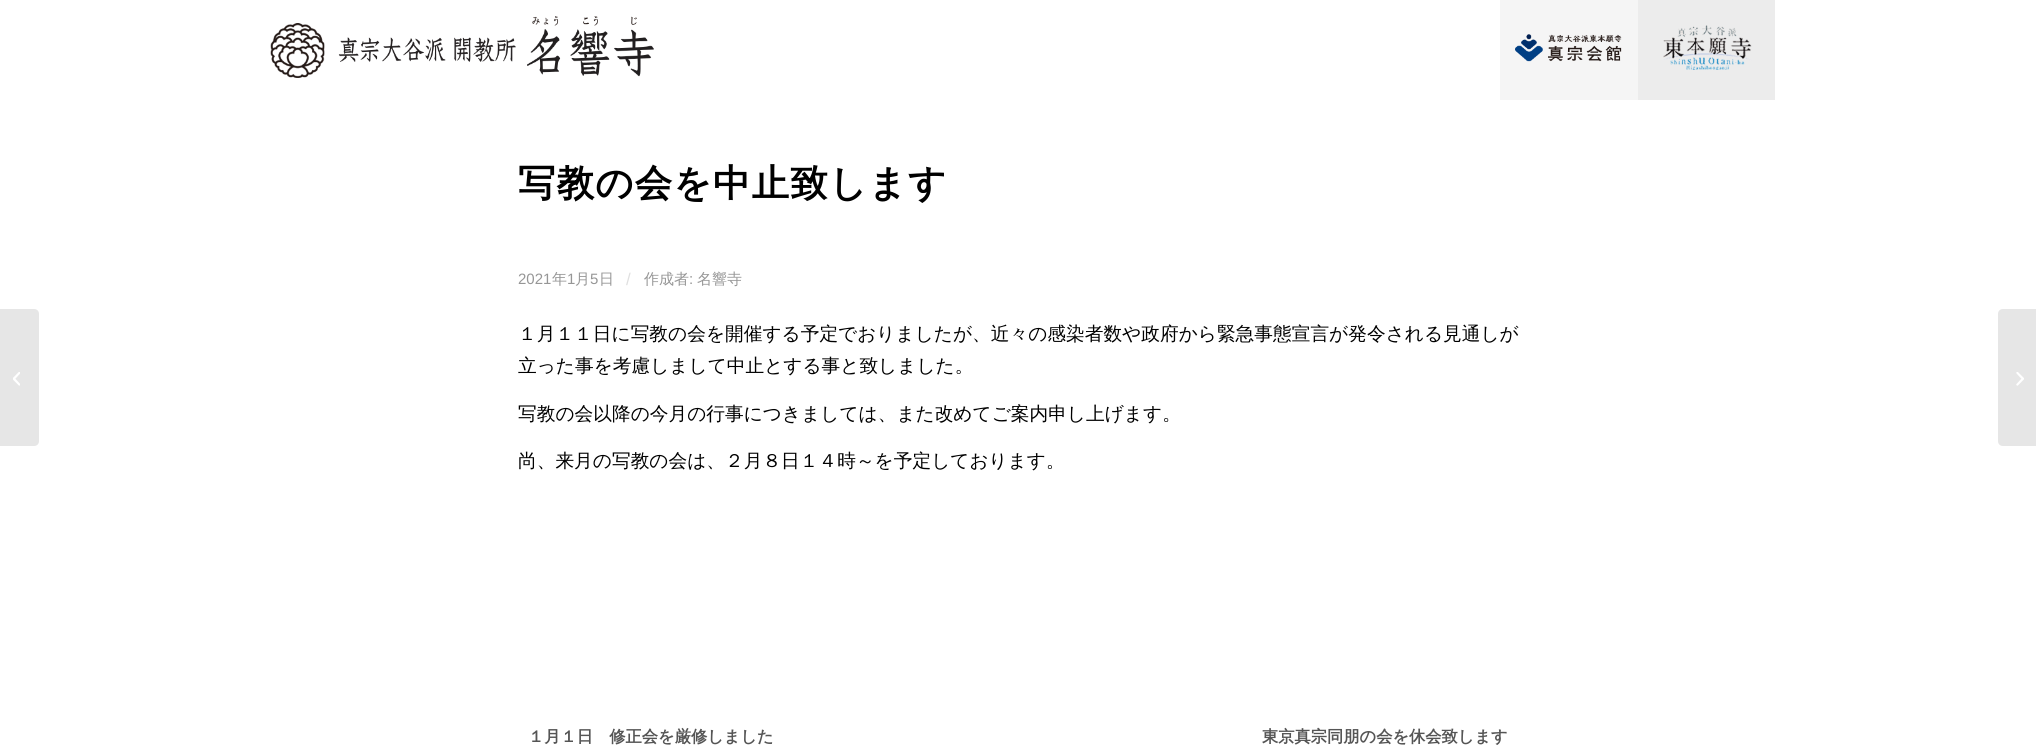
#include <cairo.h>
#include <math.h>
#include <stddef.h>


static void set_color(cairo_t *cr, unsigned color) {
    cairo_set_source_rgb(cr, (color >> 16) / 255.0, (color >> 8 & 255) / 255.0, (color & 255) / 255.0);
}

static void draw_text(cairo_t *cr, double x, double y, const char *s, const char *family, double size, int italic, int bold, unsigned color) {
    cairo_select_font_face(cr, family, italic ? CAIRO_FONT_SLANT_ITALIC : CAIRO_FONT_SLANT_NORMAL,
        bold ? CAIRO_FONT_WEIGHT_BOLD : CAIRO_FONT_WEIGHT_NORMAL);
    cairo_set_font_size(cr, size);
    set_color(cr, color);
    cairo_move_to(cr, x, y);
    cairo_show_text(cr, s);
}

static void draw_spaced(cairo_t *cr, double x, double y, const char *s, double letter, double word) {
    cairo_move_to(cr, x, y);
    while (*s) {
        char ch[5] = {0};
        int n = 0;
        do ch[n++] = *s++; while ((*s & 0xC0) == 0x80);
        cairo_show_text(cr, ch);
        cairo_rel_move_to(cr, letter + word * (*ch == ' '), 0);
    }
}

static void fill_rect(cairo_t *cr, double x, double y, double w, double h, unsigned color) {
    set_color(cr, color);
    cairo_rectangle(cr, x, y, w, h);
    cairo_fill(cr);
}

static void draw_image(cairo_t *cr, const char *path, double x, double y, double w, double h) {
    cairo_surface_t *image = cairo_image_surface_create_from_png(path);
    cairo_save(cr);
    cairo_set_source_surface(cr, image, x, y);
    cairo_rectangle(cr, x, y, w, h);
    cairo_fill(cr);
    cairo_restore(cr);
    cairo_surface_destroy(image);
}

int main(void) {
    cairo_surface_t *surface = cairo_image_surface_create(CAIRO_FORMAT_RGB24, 2036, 755);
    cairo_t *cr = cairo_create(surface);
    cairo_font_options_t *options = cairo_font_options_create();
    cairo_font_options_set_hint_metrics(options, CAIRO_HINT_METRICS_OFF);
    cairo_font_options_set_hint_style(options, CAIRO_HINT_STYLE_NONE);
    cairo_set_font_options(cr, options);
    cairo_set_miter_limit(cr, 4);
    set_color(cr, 0xFFFFFF);
    cairo_paint(cr);
    draw_image(cr, "assets/img1.png", 270, 16, 384, 62);
    fill_rect(cr, 1500, 0, 138, 100, 0xF5F5F5);
    draw_image(cr, "assets/img2.png", 1515, 34, 107, 28);
    fill_rect(cr, 1638, 0, 137, 100, 0xECECEC);
    draw_image(cr, "assets/img3.png", 1663, 25, 89, 45);
    set_color(cr, 0xE6E6E6);
    cairo_new_path(cr);
    cairo_move_to(cr, 0, 309);
    cairo_line_to(cr, 34, 309);
    cairo_curve_to(cr, 37, 309, 39, 311, 39, 314);
    cairo_line_to(cr, 39, 441);
    cairo_curve_to(cr, 39, 444, 37, 446, 34, 446);
    cairo_line_to(cr, 0, 446);
    cairo_close_path(cr);
    cairo_fill(cr);
    draw_image(cr, "assets/img4.png", 13, 372, 7, 14);
    cairo_select_font_face(cr, "WenQuanYi Zen Hei", CAIRO_FONT_SLANT_NORMAL, CAIRO_FONT_WEIGHT_BOLD);
    cairo_set_font_size(cr, 37.4);
    set_color(cr, 0x000000);
    draw_spaced(cr, 518, 196, "写教の会を中止致します", 1.25, 0);
    draw_text(cr, 518, 284, "2021", "Liberation Sans", 15, 0, 0, 0x969696);
    draw_text(cr, 552, 284, "年", "WenQuanYi Zen Hei Medium", 15, 0, 0, 0x969696);
    draw_text(cr, 567, 284, "1", "Liberation Sans", 15, 0, 0, 0x969696);
    draw_text(cr, 575, 284, "月", "WenQuanYi Zen Hei Medium", 15, 0, 0, 0x969696);
    draw_text(cr, 590, 284, "5", "Liberation Sans", 15, 0, 0, 0x969696);
    draw_text(cr, 599, 284, "日", "WenQuanYi Zen Hei Medium", 15, 0, 0, 0x969696);
    draw_text(cr, 626, 285, "/", "Liberation Sans", 17, 0, 0, 0xE0E0E0);
    draw_text(cr, 644, 284, "作成者", "WenQuanYi Zen Hei Medium", 15, 0, 0, 0x969696);
    draw_text(cr, 689, 284, ":", "Liberation Sans", 15, 0, 0, 0x969696);
    draw_text(cr, 697, 284, "名響寺", "WenQuanYi Zen Hei Medium", 15, 0, 0, 0x969696);
    draw_text(cr, 518, 340, "１月１１日に写教の会を開催する予定でおりましたが、近々の感染者数や政府から緊急事態宣言が発令される見通しが", "WenQuanYi Zen Hei Medium", 18.7, 0, 0, 0x000000);
    draw_text(cr, 518, 372, "立った事を考慮しまして中止とする事と致しました。", "WenQuanYi Zen Hei Medium", 18.7, 0, 0, 0x000000);
    draw_text(cr, 518, 420, "写教の会以降の今月の行事につきましては、また改めてご案内申し上げます。", "WenQuanYi Zen Hei Medium", 18.7, 0, 0, 0x000000);
    draw_text(cr, 518, 467, "尚、来月の写教の会は、２月８日１４時～を予定しております。", "WenQuanYi Zen Hei Medium", 18.7, 0, 0, 0x000000);
    draw_text(cr, 528, 742, "１月１日　修正会を厳修しました", "WenQuanYi Zen Hei", 16.25, 0, 1, 0x555555);
    draw_text(cr, 1262, 742, "東京真宗同朋の会を休会致します", "WenQuanYi Zen Hei", 16.25, 0, 1, 0x555555);
    set_color(cr, 0xE6E6E6);
    cairo_new_path(cr);
    cairo_move_to(cr, 2003, 309);
    cairo_line_to(cr, 2036, 309);
    cairo_line_to(cr, 2036, 446);
    cairo_line_to(cr, 2003, 446);
    cairo_curve_to(cr, 2000, 446, 1998, 444, 1998, 441);
    cairo_line_to(cr, 1998, 314);
    cairo_curve_to(cr, 1998, 311, 2000, 309, 2003, 309);
    cairo_close_path(cr);
    cairo_fill(cr);
    draw_image(cr, "assets/img5.png", 2016, 372, 8, 14);
    cairo_surface_write_to_png(surface, "output.png");
    cairo_font_options_destroy(options);
    cairo_destroy(cr);
    cairo_surface_destroy(surface);
    return 0;
}
